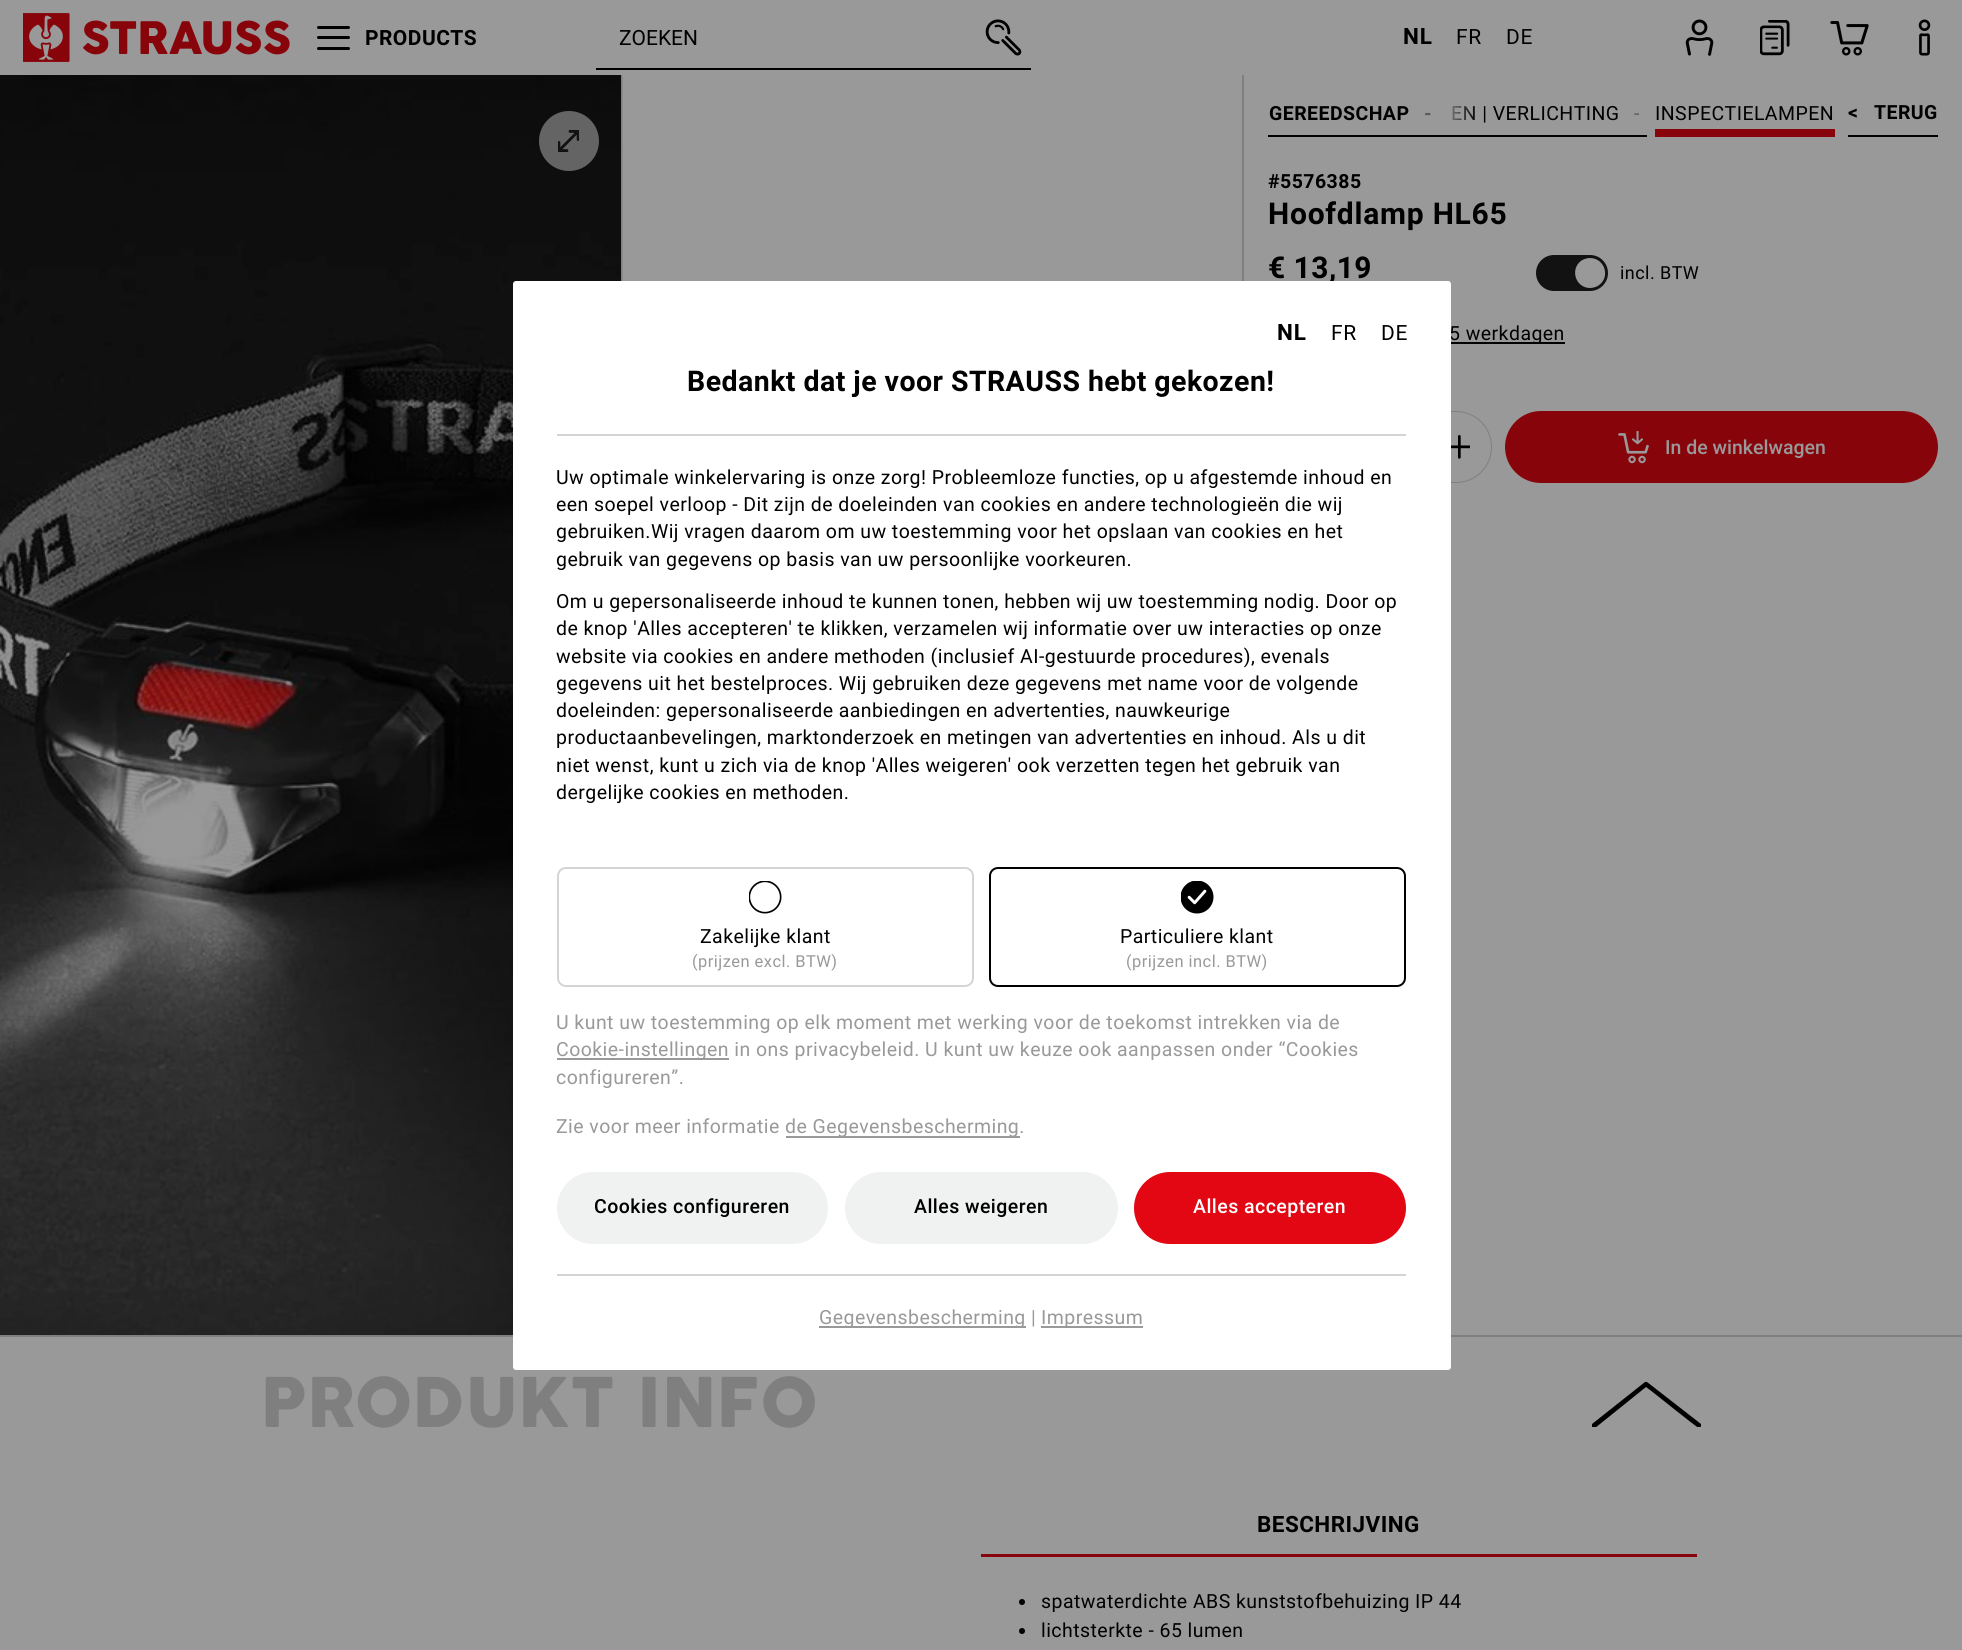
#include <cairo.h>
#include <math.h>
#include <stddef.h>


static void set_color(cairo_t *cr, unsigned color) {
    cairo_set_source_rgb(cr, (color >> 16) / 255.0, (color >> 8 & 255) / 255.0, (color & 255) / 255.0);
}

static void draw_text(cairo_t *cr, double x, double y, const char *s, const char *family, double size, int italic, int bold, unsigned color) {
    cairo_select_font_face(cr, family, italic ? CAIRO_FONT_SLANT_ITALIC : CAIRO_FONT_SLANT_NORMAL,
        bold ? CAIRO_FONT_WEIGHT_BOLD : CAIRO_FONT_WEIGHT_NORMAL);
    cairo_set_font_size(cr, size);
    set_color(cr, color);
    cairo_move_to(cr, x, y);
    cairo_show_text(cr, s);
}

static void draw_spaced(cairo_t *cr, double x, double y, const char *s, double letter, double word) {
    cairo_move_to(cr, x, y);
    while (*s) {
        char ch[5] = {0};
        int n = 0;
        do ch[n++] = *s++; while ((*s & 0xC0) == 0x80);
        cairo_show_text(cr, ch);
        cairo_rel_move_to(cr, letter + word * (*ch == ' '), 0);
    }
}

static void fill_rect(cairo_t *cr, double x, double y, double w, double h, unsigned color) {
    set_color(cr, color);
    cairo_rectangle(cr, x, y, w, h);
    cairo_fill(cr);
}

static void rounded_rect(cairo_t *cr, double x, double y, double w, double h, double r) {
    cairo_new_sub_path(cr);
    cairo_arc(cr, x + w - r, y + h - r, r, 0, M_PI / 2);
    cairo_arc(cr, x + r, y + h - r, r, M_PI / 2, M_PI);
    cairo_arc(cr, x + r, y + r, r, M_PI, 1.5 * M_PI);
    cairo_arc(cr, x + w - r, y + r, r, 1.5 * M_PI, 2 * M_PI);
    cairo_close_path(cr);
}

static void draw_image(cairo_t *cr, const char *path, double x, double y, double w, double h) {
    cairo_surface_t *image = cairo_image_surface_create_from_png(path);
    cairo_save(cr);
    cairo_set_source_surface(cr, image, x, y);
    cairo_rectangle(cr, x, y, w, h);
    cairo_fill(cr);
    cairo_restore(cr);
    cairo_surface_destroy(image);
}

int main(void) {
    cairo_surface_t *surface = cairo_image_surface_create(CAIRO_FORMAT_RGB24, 1962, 1650);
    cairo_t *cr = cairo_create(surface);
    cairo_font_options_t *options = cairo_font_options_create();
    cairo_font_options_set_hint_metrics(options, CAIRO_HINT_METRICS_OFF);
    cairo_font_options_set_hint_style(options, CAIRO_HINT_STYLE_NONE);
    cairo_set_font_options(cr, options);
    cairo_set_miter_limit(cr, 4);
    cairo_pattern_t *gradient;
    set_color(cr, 0x999999);
    cairo_paint(cr);
    draw_image(cr, "assets/img1.png", 23, 13, 267, 49);
    set_color(cr, 0x000000);
    rounded_rect(cr, 317, 26, 33, 3, 1.5);
    cairo_fill(cr);
    rounded_rect(cr, 317, 36, 33, 3, 1.5);
    cairo_fill(cr);
    rounded_rect(cr, 317, 47, 33, 3, 1.5);
    cairo_fill(cr);
    cairo_select_font_face(cr, "Roboto", CAIRO_FONT_SLANT_NORMAL, CAIRO_FONT_WEIGHT_BOLD);
    cairo_set_font_size(cr, 21);
    draw_spaced(cr, 365, 45, "PRODUCTS", 0.45, 0);
    fill_rect(cr, 596, 68, 435, 2, 0x000000);
    draw_text(cr, 619, 45, "ZOEKEN", "Roboto", 21, 0, 0, 0x000000);
    draw_image(cr, "assets/img2.png", 985, 19, 37, 37);
    cairo_select_font_face(cr, "Roboto", CAIRO_FONT_SLANT_NORMAL, CAIRO_FONT_WEIGHT_BOLD);
    cairo_set_font_size(cr, 22.5);
    draw_spaced(cr, 1403, 44, "NL", 0.75, 0);
    cairo_select_font_face(cr, "Roboto", CAIRO_FONT_SLANT_NORMAL, CAIRO_FONT_WEIGHT_NORMAL);
    cairo_set_font_size(cr, 21);
    draw_spaced(cr, 1456, 44, "FR", 0.75, 0);
    draw_spaced(cr, 1506, 44, "DE", 0.75, 0);
    draw_image(cr, "assets/img3.png", 1685, 19, 29, 37);
    draw_image(cr, "assets/img4.png", 1760, 20, 30, 36);
    draw_image(cr, "assets/img5.png", 1830, 21, 39, 35);
    draw_image(cr, "assets/img6.png", 1918, 19, 13, 37);
    draw_image(cr, "assets/img7.png", 0, 75, 621, 1260);
    set_color(cr, 0x646464);
    cairo_arc(cr, 569, 141, 30, 0, 2 * M_PI);
    cairo_fill(cr);
    draw_image(cr, "assets/img8.png", 558, 130, 21, 22);
    fill_rect(cr, 621, 75, 2, 206, 0x7F7F7F);
    draw_image(cr, "assets/img9.png", 622, 75, 620, 206);
    fill_rect(cr, 1242, 75, 2, 206, 0x7F7F7F);
    cairo_select_font_face(cr, "Roboto", CAIRO_FONT_SLANT_NORMAL, CAIRO_FONT_WEIGHT_BOLD);
    cairo_set_font_size(cr, 19.5);
    set_color(cr, 0x000000);
    draw_spaced(cr, 1269, 120, "GEREEDSCHAP", 0.45, 0);
    set_color(cr, 0x5C5C5C);
    draw_spaced(cr, 1424, 120, "-", 0.45, 0);
    cairo_select_font_face(cr, "Roboto", CAIRO_FONT_SLANT_NORMAL, CAIRO_FONT_WEIGHT_NORMAL);
    set_color(cr, 0x000000);
    draw_spaced(cr, 1451, 120, "EN | VERLICHTING", 0.45, 0);
    gradient = cairo_pattern_create_linear(1440, 119, 1478, 119);
    cairo_pattern_add_color_stop_rgba(gradient, 0, 0.6, 0.6, 0.6, 1);
    cairo_pattern_add_color_stop_rgba(gradient, 1, 0.6, 0.6, 0.6, 0);
    cairo_set_source(cr, gradient);
    cairo_pattern_destroy(gradient);
    cairo_rectangle(cr, 1452, 106, 23, 14);
    cairo_fill(cr);
    set_color(cr, 0x5C5C5C);
    draw_spaced(cr, 1634, 120, "-", 0.45, 0);
    fill_rect(cr, 1268, 135, 670, 2, 0x000000);
    fill_rect(cr, 1647, 135, 201, 2, 0x999999);
    set_color(cr, 0x000000);
    draw_spaced(cr, 1655, 120, "INSPECTIELAMPEN", 0.45, 0);
    fill_rect(cr, 1655, 129, 180, 8, 0x88040B);
    cairo_select_font_face(cr, "Roboto", CAIRO_FONT_SLANT_NORMAL, CAIRO_FONT_WEIGHT_BOLD);
    set_color(cr, 0x000000);
    draw_spaced(cr, 1848, 119, "<", 0.45, 0);
    draw_spaced(cr, 1874, 119, "TERUG", 0.45, 0);
    draw_spaced(cr, 1268, 188, "#5576385", 0.45, 0);
    cairo_set_font_size(cr, 30);
    draw_spaced(cr, 1268, 224, "Hoofdlamp HL65", 0.75, 0);
    draw_spaced(cr, 1268, 278, "€ 13,19", 0.45, 0);
    set_color(cr, 0x121212);
    rounded_rect(cr, 1536, 255, 72, 36, 18);
    cairo_fill(cr);
    set_color(cr, 0x999999);
    cairo_new_path(cr);
    cairo_move_to(cr, 1590, 258);
    cairo_curve_to(cr, 1587, 258, 1584, 259, 1581.5, 260.5);
    cairo_curve_to(cr, 1569.5, 269, 1575.5, 288, 1590, 288);
    cairo_curve_to(cr, 1593, 288, 1596, 287, 1598.5, 285.5);
    cairo_curve_to(cr, 1611, 277, 1604.5, 258, 1590, 258);
    cairo_close_path(cr);
    cairo_fill(cr);
    cairo_select_font_face(cr, "Roboto", CAIRO_FONT_SLANT_NORMAL, CAIRO_FONT_WEIGHT_NORMAL);
    cairo_set_font_size(cr, 18);
    set_color(cr, 0x000000);
    draw_spaced(cr, 1620, 279, "incl. BTW", 0.45, 0);
    fill_rect(cr, 1451, 342, 114, 2, 0x000000);
    cairo_set_font_size(cr, 19.5);
    draw_spaced(cr, 1449, 340, "5 werkdagen", 0.45, 0);
    set_color(cr, 0x7F7F7F);
    cairo_set_fill_rule(cr, CAIRO_FILL_RULE_EVEN_ODD);
    cairo_new_path(cr);
    cairo_move_to(cr, 1426, 411);
    cairo_line_to(cr, 1456, 411);
    cairo_curve_to(cr, 1476, 411, 1492, 427, 1492, 447);
    cairo_curve_to(cr, 1492, 467, 1476, 483, 1456, 483);
    cairo_line_to(cr, 1426, 483);
    cairo_close_path(cr);
    cairo_move_to(cr, 1426, 412);
    cairo_line_to(cr, 1456, 412);
    cairo_curve_to(cr, 1476, 412, 1491, 428, 1491, 447);
    cairo_curve_to(cr, 1491, 466, 1476, 482, 1456, 482);
    cairo_line_to(cr, 1426, 482);
    cairo_close_path(cr);
    cairo_fill(cr);
    draw_image(cr, "assets/img10.png", 1451, 435, 19, 24);
    set_color(cr, 0x88040B);
    rounded_rect(cr, 1505, 411, 433, 72, 36);
    cairo_fill(cr);
    draw_image(cr, "assets/img11.png", 1618, 431, 31, 33);
    draw_text(cr, 1665, 454, "In de winkelwagen", "Roboto Medium", 19.5, 0, 0, 0x999999);
    fill_rect(cr, 0, 1335, 1962, 2, 0x7F7F7F);
    cairo_select_font_face(cr, "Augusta", CAIRO_FONT_SLANT_NORMAL, CAIRO_FONT_WEIGHT_NORMAL);
    cairo_set_font_size(cr, 67.5);
    draw_spaced(cr, 261, 1427, "PRODUKT INFO", 0.45, 0);
    cairo_save(cr);
    cairo_set_fill_rule(cr, CAIRO_FILL_RULE_WINDING);
    cairo_rectangle(cr, 1592, 1382, 109, 45);
    cairo_clip(cr);
    set_color(cr, 0x000000);
    cairo_new_path(cr);
    cairo_move_to(cr, 1699, 1428);
    cairo_curve_to(cr, 1697, 1428, 1652, 1391, 1646, 1387);
    cairo_line_to(cr, 1595, 1428);
    cairo_curve_to(cr, 1593, 1429, 1591, 1427, 1592, 1425);
    cairo_line_to(cr, 1592, 1424);
    cairo_line_to(cr, 1645, 1382);
    cairo_line_to(cr, 1647, 1382);
    cairo_line_to(cr, 1701, 1424);
    cairo_curve_to(cr, 1702, 1426, 1700, 1428, 1699, 1428);
    cairo_close_path(cr);
    cairo_fill(cr);
    cairo_restore(cr);
    fill_rect(cr, 981, 1554, 716, 3, 0x88040B);
    cairo_select_font_face(cr, "Roboto", CAIRO_FONT_SLANT_NORMAL, CAIRO_FONT_WEIGHT_BOLD);
    cairo_set_font_size(cr, 22.5);
    set_color(cr, 0x000000);
    draw_spaced(cr, 1257, 1532, "BESCHRIJVING", 0.45, 0);
    cairo_new_path(cr);
    cairo_arc(cr, 1022, 1602, 3, 0, 2 * M_PI);
    cairo_fill(cr);
    cairo_select_font_face(cr, "Roboto", CAIRO_FONT_SLANT_NORMAL, CAIRO_FONT_WEIGHT_NORMAL);
    cairo_set_font_size(cr, 19.5);
    draw_spaced(cr, 1041, 1608, "spatwaterdichte ABS kunststofbehuizing IP 44", 0.45, 0);
    cairo_new_path(cr);
    cairo_arc(cr, 1022, 1631, 3, 0, 2 * M_PI);
    cairo_fill(cr);
    draw_spaced(cr, 1041, 1637, "lichtsterkte - 65 lumen", 0.45, 0);
    set_color(cr, 0xFFFFFF);
    rounded_rect(cr, 513, 281, 938, 1089, 3);
    cairo_fill(cr);
    cairo_select_font_face(cr, "Roboto", CAIRO_FONT_SLANT_NORMAL, CAIRO_FONT_WEIGHT_BOLD);
    cairo_set_font_size(cr, 22.5);
    set_color(cr, 0x000000);
    draw_spaced(cr, 1277, 340, "NL", 0.75, 0);
    cairo_select_font_face(cr, "Roboto", CAIRO_FONT_SLANT_NORMAL, CAIRO_FONT_WEIGHT_NORMAL);
    cairo_set_font_size(cr, 21);
    draw_spaced(cr, 1331, 340, "FR", 0.75, 0);
    draw_spaced(cr, 1381, 340, "DE", 0.75, 0);
    cairo_select_font_face(cr, "Roboto", CAIRO_FONT_SLANT_NORMAL, CAIRO_FONT_WEIGHT_BOLD);
    cairo_set_font_size(cr, 28.5);
    draw_spaced(cr, 687, 391, "Bedankt dat je voor STRAUSS hebt gekozen!", 0.45, 0);
    fill_rect(cr, 557, 434, 849, 2, 0xD3D4D4);
    cairo_select_font_face(cr, "Roboto", CAIRO_FONT_SLANT_NORMAL, CAIRO_FONT_WEIGHT_NORMAL);
    cairo_set_font_size(cr, 19.5);
    set_color(cr, 0x000000);
    draw_spaced(cr, 556, 484, "Uw optimale winkelervaring is onze zorg! Probleemloze functies, op u afgestemde inhoud en", 0.45, 0);
    draw_spaced(cr, 556, 511, "een soepel verloop - Dit zijn de doeleinden van cookies en andere technologieën die wij", 0.45, 0);
    draw_spaced(cr, 556, 538, "gebruiken.Wij vragen daarom om uw toestemming voor het opslaan van cookies en het", 0.45, 0);
    draw_spaced(cr, 556, 566, "gebruik van gegevens op basis van uw persoonlijke voorkeuren.", 0.45, 0);
    draw_spaced(cr, 556, 608, "Om u gepersonaliseerde inhoud te kunnen tonen, hebben wij uw toestemming nodig. Door op", 0.45, 0);
    draw_spaced(cr, 556, 635, "de knop 'Alles accepteren' te klikken, verzamelen wij informatie over uw interacties op onze", 0.45, 0);
    draw_spaced(cr, 556, 663, "website via cookies en andere methoden (inclusief AI-gestuurde procedures), evenals", 0.45, 0);
    draw_spaced(cr, 556, 690, "gegevens uit het bestelproces. Wij gebruiken deze gegevens met name voor de volgende", 0.45, 0);
    draw_spaced(cr, 556, 717, "doeleinden: gepersonaliseerde aanbiedingen en advertenties, nauwkeurige", 0.45, 0);
    draw_spaced(cr, 556, 744, "productaanbevelingen, marktonderzoek en metingen van advertenties en inhoud. Als u dit", 0.45, 0);
    draw_spaced(cr, 556, 772, "niet wenst, kunt u zich via de knop 'Alles weigeren' ook verzetten tegen het gebruik van", 0.45, 0);
    draw_spaced(cr, 556, 799, "dergelijke cookies en methoden.", 0.45, 0);
    rounded_rect(cr, 558, 868, 415, 118, 8);
    set_color(cr, 0xD3D4D4);
    cairo_stroke(cr);
    draw_image(cr, "assets/img12.png", 749, 881, 33, 33);
    set_color(cr, 0x000000);
    draw_spaced(cr, 700, 943, "Zakelijke klant", 0.45, 0);
    cairo_set_font_size(cr, 16.5);
    set_color(cr, 0x999999);
    draw_spaced(cr, 692, 967, "(prijzen excl. BTW)", 0.45, 0);
    rounded_rect(cr, 990, 868, 415, 118, 8);
    set_color(cr, 0x000000);
    cairo_stroke(cr);
    draw_image(cr, "assets/img13.png", 1181, 881, 33, 33);
    cairo_set_font_size(cr, 19.5);
    draw_spaced(cr, 1120, 943, "Particuliere klant", 0.45, 0);
    cairo_set_font_size(cr, 16.5);
    set_color(cr, 0x999999);
    draw_spaced(cr, 1126, 967, "(prijzen incl. BTW)", 0.45, 0);
    cairo_set_font_size(cr, 19.5);
    draw_spaced(cr, 556, 1029, "U kunt uw toestemming op elk moment met werking voor de toekomst intrekken via de", 0.45, 0);
    fill_rect(cr, 557, 1058, 172, 2, 0x999999);
    draw_spaced(cr, 556, 1056, "Cookie-instellingen in ons privacybeleid. U kunt uw keuze ook aanpassen onder “Cookies", 0.45, 0);
    draw_spaced(cr, 556, 1084, "configureren”.", 0.45, 0);
    draw_spaced(cr, 556, 1133, "Zie voor meer informatie", 0.45, 0);
    fill_rect(cr, 786, 1136, 234, 2, 0x999999);
    draw_spaced(cr, 785, 1133, "de Gegevensbescherming.", 0.45, 0);
    set_color(cr, 0xF0F1F1);
    rounded_rect(cr, 557, 1172, 271, 72, 36);
    cairo_fill(cr);
    cairo_select_font_face(cr, "Roboto Medium", CAIRO_FONT_SLANT_NORMAL, CAIRO_FONT_WEIGHT_NORMAL);
    set_color(cr, 0x000000);
    draw_spaced(cr, 594, 1213, "Cookies configureren", 0.45, 0);
    set_color(cr, 0xF0F1F1);
    rounded_rect(cr, 845, 1172, 273, 72, 36);
    cairo_fill(cr);
    set_color(cr, 0x000000);
    draw_spaced(cr, 914, 1213, "Alles weigeren", 0.45, 0);
    set_color(cr, 0xE30613);
    rounded_rect(cr, 1134, 1172, 272, 72, 36);
    cairo_fill(cr);
    set_color(cr, 0xFFFFFF);
    draw_spaced(cr, 1193, 1213, "Alles accepteren", 0.45, 0);
    fill_rect(cr, 557, 1274, 849, 2, 0xD3D4D4);
    fill_rect(cr, 819, 1326, 207, 2, 0x999999);
    cairo_select_font_face(cr, "Roboto", CAIRO_FONT_SLANT_NORMAL, CAIRO_FONT_WEIGHT_NORMAL);
    draw_spaced(cr, 819, 1324, "Gegevensbescherming |", 0.45, 0);
    fill_rect(cr, 1041, 1326, 102, 2, 0x999999);
    draw_spaced(cr, 1041, 1324, "Impressum", 0.45, 0);
    cairo_surface_write_to_png(surface, "output.png");
    cairo_font_options_destroy(options);
    cairo_destroy(cr);
    cairo_surface_destroy(surface);
    return 0;
}
